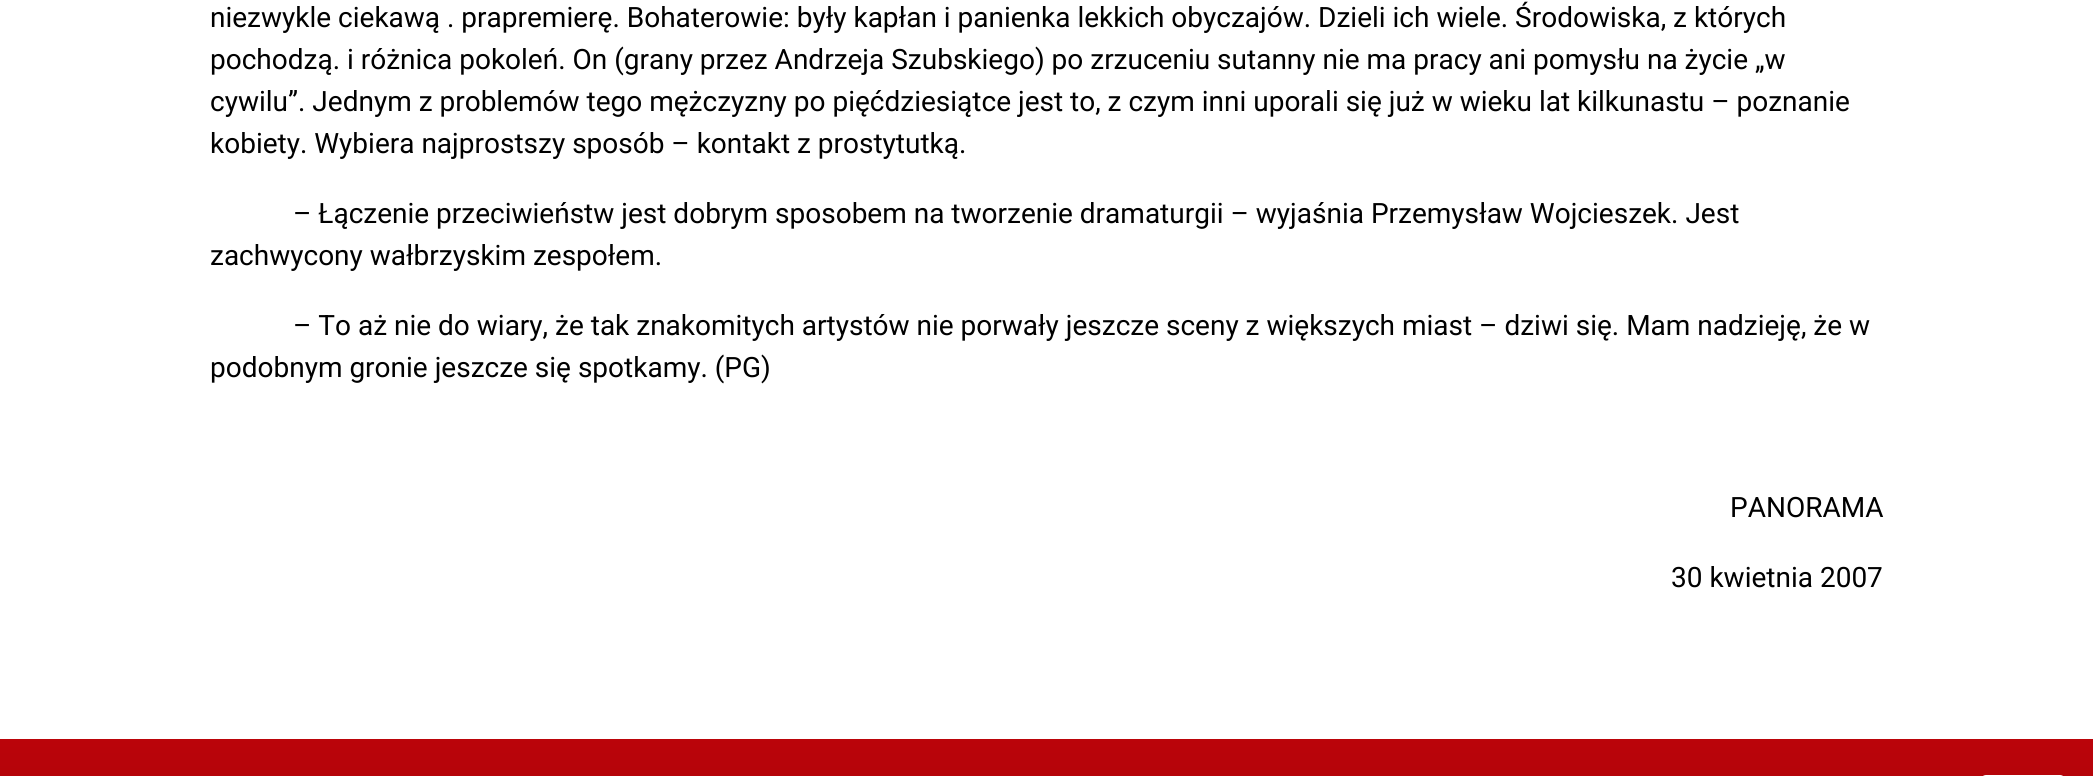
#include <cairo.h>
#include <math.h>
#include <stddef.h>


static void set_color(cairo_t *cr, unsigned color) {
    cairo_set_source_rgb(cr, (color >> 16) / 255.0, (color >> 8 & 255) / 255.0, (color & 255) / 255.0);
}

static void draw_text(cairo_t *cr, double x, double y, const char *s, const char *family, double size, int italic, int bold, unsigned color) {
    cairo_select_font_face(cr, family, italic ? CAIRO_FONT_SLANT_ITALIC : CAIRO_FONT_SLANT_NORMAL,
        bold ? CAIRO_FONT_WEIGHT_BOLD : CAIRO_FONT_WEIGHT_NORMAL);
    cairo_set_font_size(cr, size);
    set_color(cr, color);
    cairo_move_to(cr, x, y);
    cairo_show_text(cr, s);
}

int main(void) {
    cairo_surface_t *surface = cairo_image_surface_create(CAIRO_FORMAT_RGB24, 2093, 776);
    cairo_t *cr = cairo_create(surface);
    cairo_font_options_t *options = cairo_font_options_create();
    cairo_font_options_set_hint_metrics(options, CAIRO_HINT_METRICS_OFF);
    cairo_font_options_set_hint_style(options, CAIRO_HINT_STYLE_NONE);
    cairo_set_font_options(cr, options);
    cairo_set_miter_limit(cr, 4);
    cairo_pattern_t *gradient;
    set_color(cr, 0xFFFFFF);
    cairo_paint(cr);
    draw_text(cr, 210, 27, "niezwykle ciekawą . prapremierę. Bohaterowie: były kapłan i panienka lekkich obyczajów. Dzieli ich wiele. Środowiska, z których", "Roboto", 28, 0, 0, 0x000000);
    draw_text(cr, 210, 69, "pochodzą. i różnica pokoleń. On (grany przez Andrzeja Szubskiego) po zrzuceniu sutanny nie ma pracy ani pomysłu na życie „w", "Roboto", 28, 0, 0, 0x000000);
    draw_text(cr, 210, 111, "cywilu”. Jednym z problemów tego mężczyzny po pięćdziesiątce jest to, z czym inni uporali się już w wieku lat kilkunastu – poznanie", "Roboto", 28, 0, 0, 0x000000);
    draw_text(cr, 210, 153, "kobiety. Wybiera najprostszy sposób – kontakt z prostytutką.", "Roboto", 28, 0, 0, 0x000000);
    draw_text(cr, 293, 223, "– Łączenie przeciwieństw jest dobrym sposobem na tworzenie dramaturgii – wyjaśnia Przemysław Wojcieszek. Jest", "Roboto", 28, 0, 0, 0x000000);
    draw_text(cr, 210, 265, "zachwycony wałbrzyskim zespołem.", "Roboto", 28, 0, 0, 0x000000);
    draw_text(cr, 293, 335, "– To aż nie do wiary, że tak znakomitych artystów nie porwały jeszcze sceny z większych miast – dziwi się. Mam nadzieję, że w", "Roboto", 28, 0, 0, 0x000000);
    draw_text(cr, 210, 377, "podobnym gronie jeszcze się spotkamy. (PG)", "Roboto", 28, 0, 0, 0x000000);
    draw_text(cr, 1730, 517, "PANORAMA", "Roboto", 28, 0, 0, 0x000000);
    draw_text(cr, 1671, 587, "30 kwietnia 2007", "Roboto", 28, 0, 0, 0x000000);
    gradient = cairo_pattern_create_linear(1047, 738, 1047, 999);
    cairo_pattern_add_color_stop_rgba(gradient, 0, 0.733, 0.016, 0.039, 1);
    cairo_pattern_add_color_stop_rgba(gradient, 1, 0.573, 0.004, 0.024, 1);
    cairo_set_source(cr, gradient);
    cairo_pattern_destroy(gradient);
    cairo_rectangle(cr, 0, 739, 2093, 37);
    cairo_fill(cr);
    set_color(cr, 0xFFFFFF);
    cairo_new_path(cr);
    cairo_move_to(cr, 1986, 775);
    cairo_line_to(cr, 2060, 775);
    cairo_curve_to(cr, 2063, 775, 2066, 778, 2067, 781);
    cairo_line_to(cr, 2023, 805);
    cairo_line_to(cr, 1979, 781);
    cairo_curve_to(cr, 1980, 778, 1983, 775, 1986, 775);
    cairo_close_path(cr);
    cairo_move_to(cr, 2060, 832);
    cairo_line_to(cr, 1986, 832);
    cairo_curve_to(cr, 1982, 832, 1979, 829, 1979, 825);
    cairo_line_to(cr, 1979, 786);
    cairo_line_to(cr, 2008, 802);
    cairo_curve_to(cr, 2024, 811, 2019, 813, 2031, 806);
    cairo_line_to(cr, 2067, 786);
    cairo_line_to(cr, 2067, 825);
    cairo_curve_to(cr, 2067, 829, 2064, 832, 2060, 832);
    cairo_close_path(cr);
    cairo_fill(cr);
    cairo_surface_write_to_png(surface, "output.png");
    cairo_font_options_destroy(options);
    cairo_destroy(cr);
    cairo_surface_destroy(surface);
    return 0;
}
